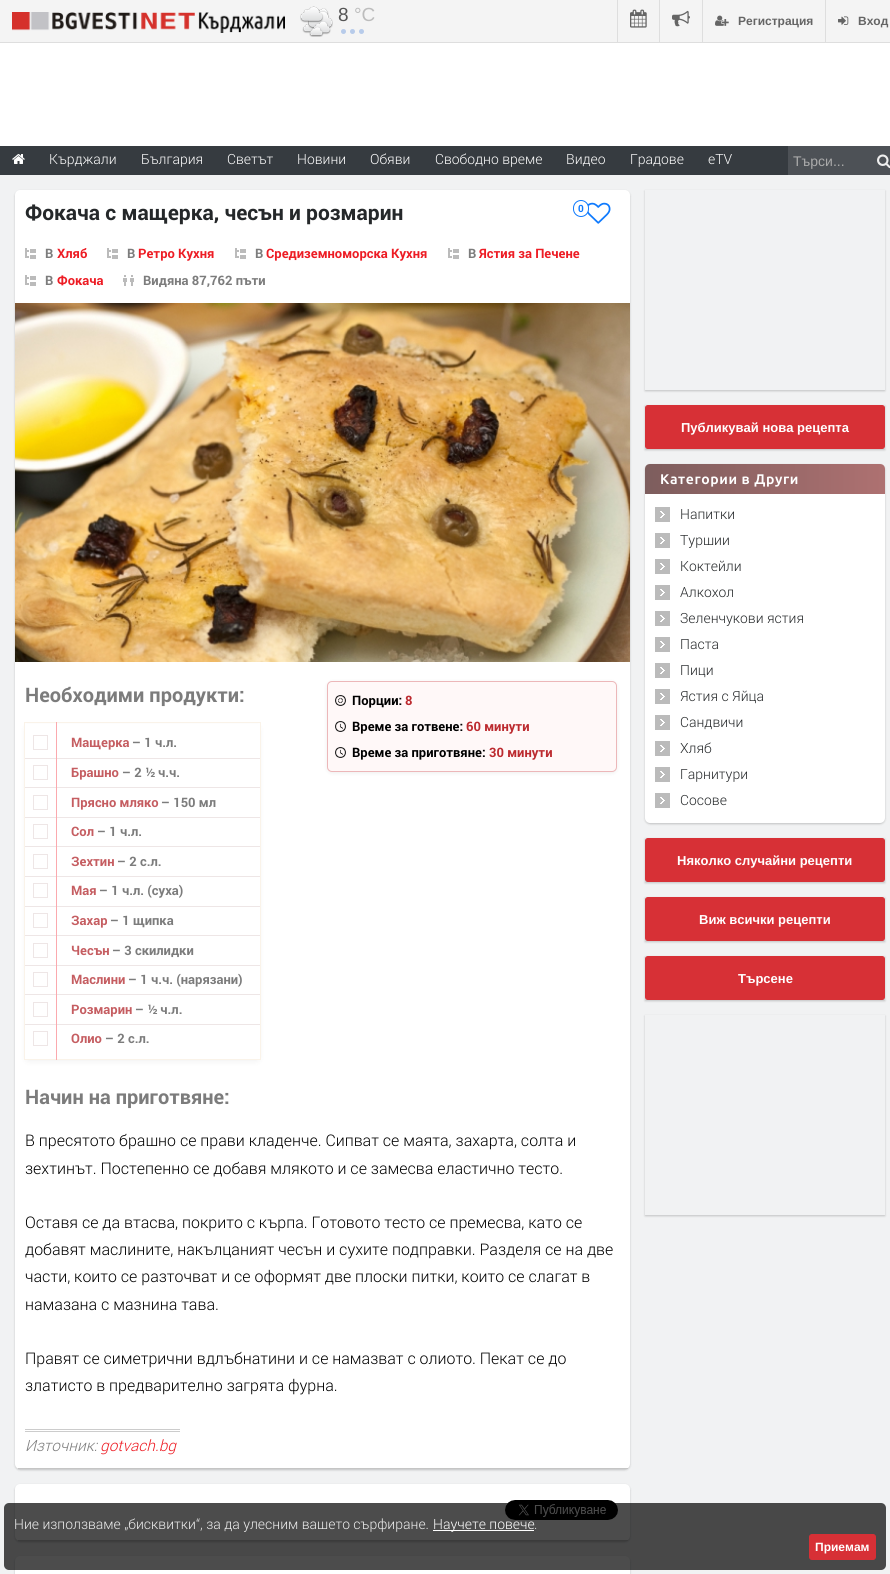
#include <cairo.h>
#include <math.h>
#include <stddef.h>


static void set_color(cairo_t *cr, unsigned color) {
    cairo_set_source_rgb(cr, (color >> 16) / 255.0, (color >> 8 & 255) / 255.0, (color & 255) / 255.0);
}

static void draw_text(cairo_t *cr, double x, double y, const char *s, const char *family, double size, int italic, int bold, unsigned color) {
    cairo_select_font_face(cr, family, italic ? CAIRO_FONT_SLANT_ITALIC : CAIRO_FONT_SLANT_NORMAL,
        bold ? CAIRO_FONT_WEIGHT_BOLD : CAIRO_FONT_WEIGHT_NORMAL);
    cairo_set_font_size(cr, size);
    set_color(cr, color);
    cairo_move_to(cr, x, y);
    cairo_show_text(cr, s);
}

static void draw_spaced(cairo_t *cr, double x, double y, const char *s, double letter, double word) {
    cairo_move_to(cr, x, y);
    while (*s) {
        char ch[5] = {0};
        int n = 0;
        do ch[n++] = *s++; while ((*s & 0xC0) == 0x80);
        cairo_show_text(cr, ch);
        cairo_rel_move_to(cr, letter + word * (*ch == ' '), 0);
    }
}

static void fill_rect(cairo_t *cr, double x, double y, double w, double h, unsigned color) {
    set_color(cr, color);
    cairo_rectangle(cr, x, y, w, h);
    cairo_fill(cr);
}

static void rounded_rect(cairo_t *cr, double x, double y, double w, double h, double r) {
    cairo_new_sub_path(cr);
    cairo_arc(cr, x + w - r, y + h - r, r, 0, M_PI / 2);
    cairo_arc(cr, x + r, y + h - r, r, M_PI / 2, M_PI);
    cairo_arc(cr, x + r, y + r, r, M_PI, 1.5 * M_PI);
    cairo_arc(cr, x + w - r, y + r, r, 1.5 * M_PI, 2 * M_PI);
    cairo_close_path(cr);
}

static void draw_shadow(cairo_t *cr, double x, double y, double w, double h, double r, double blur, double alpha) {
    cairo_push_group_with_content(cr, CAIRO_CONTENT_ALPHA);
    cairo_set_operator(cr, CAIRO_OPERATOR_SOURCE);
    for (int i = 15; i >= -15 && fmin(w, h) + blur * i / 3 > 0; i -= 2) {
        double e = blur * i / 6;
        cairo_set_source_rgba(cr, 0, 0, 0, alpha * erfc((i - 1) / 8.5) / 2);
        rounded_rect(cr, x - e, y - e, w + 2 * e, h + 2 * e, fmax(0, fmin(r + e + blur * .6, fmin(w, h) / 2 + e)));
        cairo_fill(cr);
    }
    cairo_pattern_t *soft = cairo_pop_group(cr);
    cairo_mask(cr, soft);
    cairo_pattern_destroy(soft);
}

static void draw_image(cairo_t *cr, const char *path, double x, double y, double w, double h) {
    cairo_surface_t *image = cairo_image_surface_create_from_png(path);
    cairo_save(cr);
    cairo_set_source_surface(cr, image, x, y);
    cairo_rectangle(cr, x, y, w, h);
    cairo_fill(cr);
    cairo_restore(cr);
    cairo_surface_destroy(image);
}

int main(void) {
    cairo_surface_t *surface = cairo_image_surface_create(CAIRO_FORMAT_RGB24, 890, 1574);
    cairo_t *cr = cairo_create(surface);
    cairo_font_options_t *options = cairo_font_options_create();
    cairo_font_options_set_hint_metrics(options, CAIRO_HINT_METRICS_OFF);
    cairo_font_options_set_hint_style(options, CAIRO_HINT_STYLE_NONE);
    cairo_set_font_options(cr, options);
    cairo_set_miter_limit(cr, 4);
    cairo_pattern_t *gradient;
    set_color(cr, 0xF1F2F3);
    cairo_paint(cr);
    fill_rect(cr, 0, 43, 890, 103, 0xFFFFFF);
    fill_rect(cr, 0, 0, 890, 42, 0xF4F4F4);
    draw_image(cr, "assets/img1.png", 12, 12, 273, 21);
    draw_image(cr, "assets/img2.png", 300, 6, 33, 31);
    draw_text(cr, 338, 21, "8", "Liberation Sans", 19, 0, 0, 0x555555);
    draw_text(cr, 354, 21, "°C", "Liberation Sans", 19, 0, 0, 0xBCBCBC);
    set_color(cr, 0xB7CBEA);
    cairo_new_path(cr);
    cairo_arc(cr, 361.5, 31.5, 2.5, 0, 2 * M_PI);
    cairo_fill(cr);
    cairo_arc(cr, 352.5, 31.5, 2.5, 0, 2 * M_PI);
    cairo_fill(cr);
    cairo_arc(cr, 343.5, 31.5, 2.5, 0, 2 * M_PI);
    cairo_fill(cr);
    fill_rect(cr, 0, 42, 890, 1, 0xDEDEDE);
    fill_rect(cr, 617, 0, 1, 42, 0xDEDEDE);
    draw_image(cr, "assets/img3.png", 630, 9, 17, 19);
    fill_rect(cr, 659, 0, 1, 42, 0xDEDEDE);
    draw_image(cr, "assets/img4.png", 672, 10, 18, 17);
    fill_rect(cr, 702, 0, 1, 42, 0xDEDEDE);
    draw_image(cr, "assets/img5.png", 715, 15, 14, 11);
    draw_text(cr, 738, 25, "Регистрация", "Liberation Sans", 12, 0, 1, 0x656565);
    fill_rect(cr, 825, 0, 1, 42, 0xDEDEDE);
    draw_image(cr, "assets/img6.png", 838, 16, 11, 9);
    draw_text(cr, 858, 25, "Вход", "Liberation Sans", 12, 0, 1, 0x656565);
    fill_rect(cr, 0, 146, 788, 29, 0x363B40);
    draw_image(cr, "assets/img7.png", 12, 154, 13, 10);
    draw_text(cr, 49, 164, "Кърджали", "Roboto Light", 14, 0, 0, 0xFFFFFF);
    draw_text(cr, 141, 164, "България", "Roboto Light", 14, 0, 0, 0xFFFFFF);
    draw_text(cr, 227, 164, "Светът", "Roboto Light", 14, 0, 0, 0xFFFFFF);
    draw_text(cr, 297, 164, "Новини", "Roboto Light", 14, 0, 0, 0xFFFFFF);
    draw_text(cr, 370, 164, "Обяви", "Roboto Light", 14, 0, 0, 0xFFFFFF);
    draw_text(cr, 435, 164, "Свободно време", "Roboto Light", 14, 0, 0, 0xFFFFFF);
    draw_text(cr, 566, 164, "Видео", "Roboto Light", 14, 0, 0, 0xFFFFFF);
    draw_text(cr, 630, 164, "Градове", "Roboto Light", 14, 0, 0, 0xFFFFFF);
    draw_text(cr, 708, 164, "eTV", "Roboto Light", 14, 0, 0, 0xFFFFFF);
    fill_rect(cr, 788, 146, 102, 29, 0x4D5156);
    draw_text(cr, 793, 166, "Търси...", "Liberation Sans", 14, 0, 0, 0xABABAB);
    draw_image(cr, "assets/img8.png", 877, 154, 13, 15);
    set_color(cr, 0x000000);
    draw_shadow(cr, 15, 191, 615, 1279, 5, 1, 0.2);
    set_color(cr, 0xFFFFFF);
    rounded_rect(cr, 15, 190, 615, 1279, 5);
    cairo_fill(cr);
    fill_rect(cr, 18, 1468, 610, 1, 0xC5C5C5);
    draw_text(cr, 25, 220, "Фокача с мащерка, чесън и розмарин", "Roboto", 21, 0, 1, 0x25282A);
    draw_image(cr, "assets/img9.png", 587, 202, 24, 22);
    set_color(cr, 0xFFFFFF);
    rounded_rect(cr, 573.5, 200.5, 15, 16, 7.5);
    cairo_fill_preserve(cr);
    set_color(cr, 0x0E7AFE);
    cairo_set_line_width(cr, 1);
    cairo_stroke(cr);
    draw_text(cr, 578, 212, "0", "Roboto", 10, 0, 1, 0x0E7AFE);
    draw_image(cr, "assets/img10.png", 25, 248, 11, 11);
    draw_text(cr, 45, 258, "В", "Roboto", 13, 0, 1, 0x7C7C7C);
    draw_text(cr, 57, 258, "Хляб", "Roboto", 13, 0, 1, 0xED1C24);
    draw_image(cr, "assets/img10.png", 107, 248, 11, 11);
    draw_text(cr, 127, 258, "В", "Roboto", 13, 0, 1, 0x7C7C7C);
    draw_text(cr, 138, 258, "Ретро Кухня", "Roboto", 13, 0, 1, 0xED1C24);
    draw_image(cr, "assets/img10.png", 235, 248, 11, 11);
    draw_text(cr, 255, 258, "В", "Roboto", 13, 0, 1, 0x7C7C7C);
    draw_text(cr, 266, 258, "Средиземноморска Кухня", "Roboto", 13, 0, 1, 0xED1C24);
    draw_image(cr, "assets/img10.png", 448, 248, 11, 11);
    draw_text(cr, 468, 258, "В", "Roboto", 13, 0, 1, 0x7C7C7C);
    draw_text(cr, 479, 258, "Ястия за Печене", "Roboto", 13, 0, 1, 0xED1C24);
    draw_image(cr, "assets/img10.png", 25, 275, 11, 11);
    draw_text(cr, 45, 285, "В", "Roboto", 13, 0, 1, 0x7C7C7C);
    draw_text(cr, 57, 285, "Фокача", "Roboto", 13, 0, 1, 0xED1C24);
    draw_image(cr, "assets/img11.png", 123, 275, 11, 11);
    draw_text(cr, 143, 285, "Видяна 87,762 пъти", "Roboto", 13, 0, 1, 0x7C7C7C);
    draw_image(cr, "assets/img12.png", 15, 303, 615, 359);
    draw_text(cr, 25, 702, "Необходими продукти:", "Roboto", 20, 0, 1, 0x7C7C7C);
    set_color(cr, 0x000000);
    draw_shadow(cr, 327, 682, 290, 91, 5, 2, 0.07);
    set_color(cr, 0xFFF8F8);
    rounded_rect(cr, 327.5, 681.5, 289, 90, 4.5);
    cairo_fill_preserve(cr);
    set_color(cr, 0xECB7B9);
    cairo_stroke(cr);
    draw_image(cr, "assets/img13.png", 335, 695, 11, 11);
    draw_text(cr, 352, 705, "Порции:", "Roboto", 13, 0, 1, 0x000000);
    draw_text(cr, 405, 705, "8", "Roboto", 13, 0, 1, 0xBC2A2F);
    draw_image(cr, "assets/img14.png", 335, 721, 11, 11);
    draw_text(cr, 352, 731, "Време за готвене:", "Roboto", 13, 0, 1, 0x000000);
    draw_text(cr, 466, 731, "60 минути", "Roboto", 13, 0, 1, 0xBC2A2F);
    draw_image(cr, "assets/img14.png", 335, 747, 11, 11);
    draw_text(cr, 352, 757, "Време за приготвяне:", "Roboto", 13, 0, 1, 0x000000);
    draw_text(cr, 489, 757, "30 минути", "Roboto", 13, 0, 1, 0xBC2A2F);
    set_color(cr, 0x000000);
    draw_shadow(cr, 28, 729, 229, 330, 0, 4, 0.1);
    fill_rect(cr, 25, 724, 235, 335, 0xFFFFFF);
    cairo_rectangle(cr, 24.5, 722.5, 236, 337);
    set_color(cr, 0xFAF3E9);
    cairo_stroke(cr);
    fill_rect(cr, 25, 758, 235, 1, 0xEEE6E6);
    fill_rect(cr, 25, 787, 235, 1, 0xEEE6E6);
    fill_rect(cr, 25, 817, 235, 1, 0xEEE6E6);
    fill_rect(cr, 25, 846, 235, 1, 0xEEE6E6);
    fill_rect(cr, 25, 876, 235, 1, 0xEEE6E6);
    fill_rect(cr, 25, 906, 235, 1, 0xEEE6E6);
    fill_rect(cr, 25, 935, 235, 1, 0xEEE6E6);
    fill_rect(cr, 25, 965, 235, 1, 0xEEE6E6);
    fill_rect(cr, 25, 994, 235, 1, 0xEEE6E6);
    fill_rect(cr, 25, 1024, 235, 1, 0xEEE6E6);
    fill_rect(cr, 56, 722, 1, 338, 0xFBA9AE);
    cairo_rectangle(cr, 33.5, 735.5, 14, 14);
    set_color(cr, 0xEEE6E6);
    cairo_stroke(cr);
    draw_text(cr, 71, 747, "Мащерка", "Roboto", 13, 0, 1, 0xC55D61);
    draw_text(cr, 132, 747, "– 1 ч.л.", "Roboto", 13, 0, 1, 0x7C7C7C);
    cairo_rectangle(cr, 33.5, 765.5, 14, 14);
    set_color(cr, 0xEEE6E6);
    cairo_stroke(cr);
    draw_text(cr, 71, 777, "Брашно", "Roboto", 13, 0, 1, 0xC55D61);
    draw_text(cr, 122, 777, "– 2 ½ ч.ч.", "Roboto", 13, 0, 1, 0x7C7C7C);
    cairo_rectangle(cr, 33.5, 795.5, 14, 14);
    set_color(cr, 0xEEE6E6);
    cairo_stroke(cr);
    draw_text(cr, 71, 807, "Прясно мляко", "Roboto", 13, 0, 1, 0xC55D61);
    draw_text(cr, 161, 807, "– 150 мл", "Roboto", 13, 0, 1, 0x7C7C7C);
    cairo_rectangle(cr, 33.5, 824.5, 14, 14);
    set_color(cr, 0xEEE6E6);
    cairo_stroke(cr);
    draw_text(cr, 71, 836, "Сол", "Roboto", 13, 0, 1, 0xC55D61);
    draw_text(cr, 97, 836, "– 1 ч.л.", "Roboto", 13, 0, 1, 0x7C7C7C);
    cairo_rectangle(cr, 33.5, 854.5, 14, 14);
    set_color(cr, 0xEEE6E6);
    cairo_stroke(cr);
    draw_text(cr, 71, 866, "Зехтин", "Roboto", 13, 0, 1, 0xC55D61);
    draw_text(cr, 117, 866, "– 2 с.л.", "Roboto", 13, 0, 1, 0x7C7C7C);
    cairo_rectangle(cr, 33.5, 883.5, 14, 14);
    set_color(cr, 0xEEE6E6);
    cairo_stroke(cr);
    draw_text(cr, 71, 895, "Мая", "Roboto", 13, 0, 1, 0xC55D61);
    draw_text(cr, 99, 895, "– 1 ч.л. (суха)", "Roboto", 13, 0, 1, 0x7C7C7C);
    cairo_rectangle(cr, 33.5, 913.5, 14, 14);
    set_color(cr, 0xEEE6E6);
    cairo_stroke(cr);
    draw_text(cr, 71, 925, "Захар", "Roboto", 13, 0, 1, 0xC55D61);
    draw_text(cr, 110, 925, "– 1 щипка", "Roboto", 13, 0, 1, 0x7C7C7C);
    cairo_rectangle(cr, 33.5, 943.5, 14, 14);
    set_color(cr, 0xEEE6E6);
    cairo_stroke(cr);
    draw_text(cr, 71, 955, "Чесън", "Roboto", 13, 0, 1, 0xC55D61);
    draw_text(cr, 112, 955, "– 3 скилидки", "Roboto", 13, 0, 1, 0x7C7C7C);
    cairo_rectangle(cr, 33.5, 972.5, 14, 14);
    set_color(cr, 0xEEE6E6);
    cairo_stroke(cr);
    draw_text(cr, 71, 984, "Маслини", "Roboto", 13, 0, 1, 0xC55D61);
    draw_text(cr, 128, 984, "– 1 ч.ч. (нарязани)", "Roboto", 13, 0, 1, 0x7C7C7C);
    cairo_rectangle(cr, 33.5, 1002.5, 14, 14);
    set_color(cr, 0xEEE6E6);
    cairo_stroke(cr);
    draw_text(cr, 71, 1014, "Розмарин", "Roboto", 13, 0, 1, 0xC55D61);
    draw_text(cr, 135, 1014, "– ½ ч.л.", "Roboto", 13, 0, 1, 0x7C7C7C);
    cairo_rectangle(cr, 33.5, 1031.5, 14, 14);
    set_color(cr, 0xEEE6E6);
    cairo_stroke(cr);
    draw_text(cr, 71, 1043, "Олио", "Roboto", 13, 0, 1, 0xC55D61);
    draw_text(cr, 105, 1043, "– 2 с.л.", "Roboto", 13, 0, 1, 0x7C7C7C);
    draw_text(cr, 25, 1104, "Начин на приготвяне:", "Roboto", 20, 0, 1, 0x7C7C7C);
    draw_text(cr, 25, 1146, "В пресятото брашно се прави кладенче. Сипват се маята, захарта, солта и", "Roboto Light", 16, 0, 0, 0x000000);
    draw_text(cr, 25, 1174, "зехтинът. Постепенно се добавя млякото и се замесва еластично тесто.", "Roboto Light", 16, 0, 0, 0x000000);
    draw_text(cr, 25, 1228, "Оставя се да втасва, покрито с кърпа. Готовото тесто се премесва, като се", "Roboto Light", 16, 0, 0, 0x000000);
    draw_text(cr, 25, 1255, "добавят маслините, накълцаният чесън и сухите подправки. Разделя се на две", "Roboto Light", 16, 0, 0, 0x000000);
    draw_text(cr, 25, 1282, "части, които се разточват и се оформят две плоски питки, които се слагат в", "Roboto Light", 16, 0, 0, 0x000000);
    draw_text(cr, 25, 1310, "намазана с мазнина тава.", "Roboto Light", 16, 0, 0, 0x000000);
    draw_text(cr, 25, 1364, "Правят се симетрични вдлъбнатини и се намазват с олиото. Пекат се до", "Roboto Light", 16, 0, 0, 0x000000);
    draw_text(cr, 25, 1391, "златисто в предварително загрята фурна.", "Roboto Light", 16, 0, 0, 0x000000);
    fill_rect(cr, 25, 1429, 155, 1, 0xCCCCCC);
    fill_rect(cr, 25, 1431, 155, 1, 0xCCCCCC);
    draw_text(cr, 25, 1451, "Източник:", "Roboto Light", 15.5, 1, 0, 0x7C7C7C);
    draw_text(cr, 100, 1451, "gotvach.bg", "Roboto Light", 15.5, 1, 0, 0xED1C24);
    set_color(cr, 0x000000);
    draw_shadow(cr, 15, 1485, 615, 57, 5, 1, 0.2);
    set_color(cr, 0xFFFFFF);
    rounded_rect(cr, 15, 1484, 615, 57, 5);
    cairo_fill(cr);
    fill_rect(cr, 18, 1540, 610, 1, 0xC5C5C5);
    draw_image(cr, "assets/img15.png", 505, 1500, 113, 20);
    set_color(cr, 0x000000);
    draw_shadow(cr, 15, 1557, 615, 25, 5, 1, 0.2);
    set_color(cr, 0xFFFFFF);
    rounded_rect(cr, 15, 1556, 615, 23, 5);
    cairo_fill(cr);
    cairo_save(cr);
    cairo_set_fill_rule(cr, CAIRO_FILL_RULE_EVEN_ODD);
    cairo_new_path(cr);
    cairo_move_to(cr, 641, 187);
    cairo_line_to(cr, 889, 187);
    cairo_line_to(cr, 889, 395);
    cairo_line_to(cr, 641, 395);
    cairo_close_path(cr);
    cairo_move_to(cr, 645, 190);
    cairo_line_to(cr, 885, 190);
    cairo_line_to(cr, 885, 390);
    cairo_line_to(cr, 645, 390);
    cairo_close_path(cr);
    cairo_clip(cr);
    set_color(cr, 0x000000);
    draw_shadow(cr, 645, 191, 240, 200, 0, 1, 0.2);
    cairo_restore(cr);
    set_color(cr, 0x000000);
    draw_shadow(cr, 645, 406, 240, 44, 0, 1, 0.2);
    set_color(cr, 0xD73036);
    rounded_rect(cr, 645.5, 405.5, 239, 43, 2.5);
    cairo_fill_preserve(cr);
    cairo_stroke(cr);
    draw_text(cr, 681, 432, "Публикувай нова рецепта", "Liberation Sans", 13, 0, 1, 0xFFFFFF);
    set_color(cr, 0x000000);
    draw_shadow(cr, 645, 465, 240, 359, 5, 1, 0.2);
    set_color(cr, 0xFFFFFF);
    rounded_rect(cr, 645, 464, 240, 359, 5);
    cairo_fill(cr);
    gradient = cairo_pattern_create_linear(645, 479, 885, 479);
    cairo_pattern_add_color_stop_rgba(gradient, 0, 0.49, 0.365, 0.365, 1);
    cairo_pattern_add_color_stop_rgba(gradient, 1, 0.682, 0.443, 0.443, 1);
    cairo_set_source(cr, gradient);
    cairo_pattern_destroy(gradient);
    cairo_new_path(cr);
    cairo_move_to(cr, 650, 464);
    cairo_line_to(cr, 880, 464);
    cairo_curve_to(cr, 883, 464, 885, 466, 885, 469);
    cairo_line_to(cr, 885, 494);
    cairo_line_to(cr, 645, 494);
    cairo_line_to(cr, 645, 469);
    cairo_curve_to(cr, 645, 466, 647, 464, 650, 464);
    cairo_close_path(cr);
    cairo_fill(cr);
    cairo_select_font_face(cr, "Ubuntu", CAIRO_FONT_SLANT_NORMAL, CAIRO_FONT_WEIGHT_BOLD);
    cairo_set_font_size(cr, 14);
    set_color(cr, 0xFFFFFF);
    draw_spaced(cr, 660, 484, "Категории в Други", 0.6, 0);
    draw_image(cr, "assets/img16.png", 655, 507, 15, 15);
    draw_text(cr, 680, 519, "Напитки", "Roboto Light", 14, 0, 0, 0x25282A);
    draw_image(cr, "assets/img16.png", 655, 533, 15, 15);
    draw_text(cr, 680, 545, "Туршии", "Roboto Light", 14, 0, 0, 0x25282A);
    draw_image(cr, "assets/img16.png", 655, 559, 15, 15);
    draw_text(cr, 680, 571, "Коктейли", "Roboto Light", 14, 0, 0, 0x25282A);
    draw_image(cr, "assets/img16.png", 655, 585, 15, 15);
    draw_text(cr, 680, 597, "Алкохол", "Roboto Light", 14, 0, 0, 0x25282A);
    draw_image(cr, "assets/img16.png", 655, 611, 15, 15);
    draw_text(cr, 680, 623, "Зеленчукови ястия", "Roboto Light", 14, 0, 0, 0x25282A);
    draw_image(cr, "assets/img16.png", 655, 637, 15, 15);
    draw_text(cr, 680, 649, "Паста", "Roboto Light", 14, 0, 0, 0x25282A);
    draw_image(cr, "assets/img16.png", 655, 663, 15, 15);
    draw_text(cr, 680, 675, "Пици", "Roboto Light", 14, 0, 0, 0x25282A);
    draw_image(cr, "assets/img16.png", 655, 689, 15, 15);
    draw_text(cr, 680, 701, "Ястия с Яйца", "Roboto Light", 14, 0, 0, 0x25282A);
    draw_image(cr, "assets/img16.png", 655, 715, 15, 15);
    draw_text(cr, 680, 727, "Сандвичи", "Roboto Light", 14, 0, 0, 0x25282A);
    draw_image(cr, "assets/img16.png", 655, 741, 15, 15);
    draw_text(cr, 680, 753, "Хляб", "Roboto Light", 14, 0, 0, 0x25282A);
    draw_image(cr, "assets/img16.png", 655, 767, 15, 15);
    draw_text(cr, 680, 779, "Гарнитури", "Roboto Light", 14, 0, 0, 0x25282A);
    draw_image(cr, "assets/img16.png", 655, 793, 15, 15);
    draw_text(cr, 680, 805, "Сосове", "Roboto Light", 14, 0, 0, 0x25282A);
    set_color(cr, 0x000000);
    draw_shadow(cr, 645, 839, 240, 44, 0, 1, 0.2);
    set_color(cr, 0xD73036);
    rounded_rect(cr, 645.5, 838.5, 239, 43, 2.5);
    cairo_fill_preserve(cr);
    cairo_stroke(cr);
    draw_text(cr, 677, 865, "Няколко случайни рецепти", "Liberation Sans", 13, 0, 1, 0xFFFFFF);
    set_color(cr, 0x000000);
    draw_shadow(cr, 645, 898, 240, 44, 0, 1, 0.2);
    set_color(cr, 0xD73036);
    rounded_rect(cr, 645.5, 897.5, 239, 43, 2.5);
    cairo_fill_preserve(cr);
    cairo_stroke(cr);
    draw_text(cr, 699, 924, "Виж всички рецепти", "Liberation Sans", 13, 0, 1, 0xFFFFFF);
    set_color(cr, 0x000000);
    draw_shadow(cr, 645, 957, 240, 44, 0, 1, 0.2);
    set_color(cr, 0xD73036);
    rounded_rect(cr, 645.5, 956.5, 239, 43, 2.5);
    cairo_fill_preserve(cr);
    cairo_stroke(cr);
    draw_text(cr, 738, 983, "Търсене", "Liberation Sans", 13, 0, 1, 0xFFFFFF);
    cairo_save(cr);
    cairo_set_fill_rule(cr, CAIRO_FILL_RULE_EVEN_ODD);
    cairo_new_path(cr);
    cairo_move_to(cr, 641, 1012);
    cairo_line_to(cr, 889, 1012);
    cairo_line_to(cr, 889, 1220);
    cairo_line_to(cr, 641, 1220);
    cairo_close_path(cr);
    cairo_move_to(cr, 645, 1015);
    cairo_line_to(cr, 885, 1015);
    cairo_line_to(cr, 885, 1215);
    cairo_line_to(cr, 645, 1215);
    cairo_close_path(cr);
    cairo_clip(cr);
    set_color(cr, 0x000000);
    draw_shadow(cr, 645, 1016, 240, 200, 0, 1, 0.2);
    cairo_restore(cr);
    cairo_set_source_rgba(cr, 0, 0, 0, 0.7);
    rounded_rect(cr, 4, 1503, 882, 67, 5);
    cairo_fill(cr);
    draw_text(cr, 14, 1529, "Ние използваме „бисквитки“, за да улесним вашето сърфиране.", "Roboto Light", 14, 0, 0, 0xEEEEEE);
    fill_rect(cr, 433, 1530, 101, 1, 0xFFFFFF);
    draw_text(cr, 433, 1529, "Научете повече", "Roboto Light", 14, 0, 0, 0xFFFFFF);
    draw_text(cr, 534, 1529, ".", "Roboto Light", 14, 0, 0, 0xEEEEEE);
    set_color(cr, 0xD73036);
    rounded_rect(cr, 809.5, 1534.5, 66, 25, 2.5);
    cairo_fill_preserve(cr);
    cairo_stroke(cr);
    draw_text(cr, 815, 1551, "Приемам", "Liberation Sans", 12, 0, 1, 0xFFFFFF);
    cairo_surface_write_to_png(surface, "output.png");
    cairo_font_options_destroy(options);
    cairo_destroy(cr);
    cairo_surface_destroy(surface);
    return 0;
}
